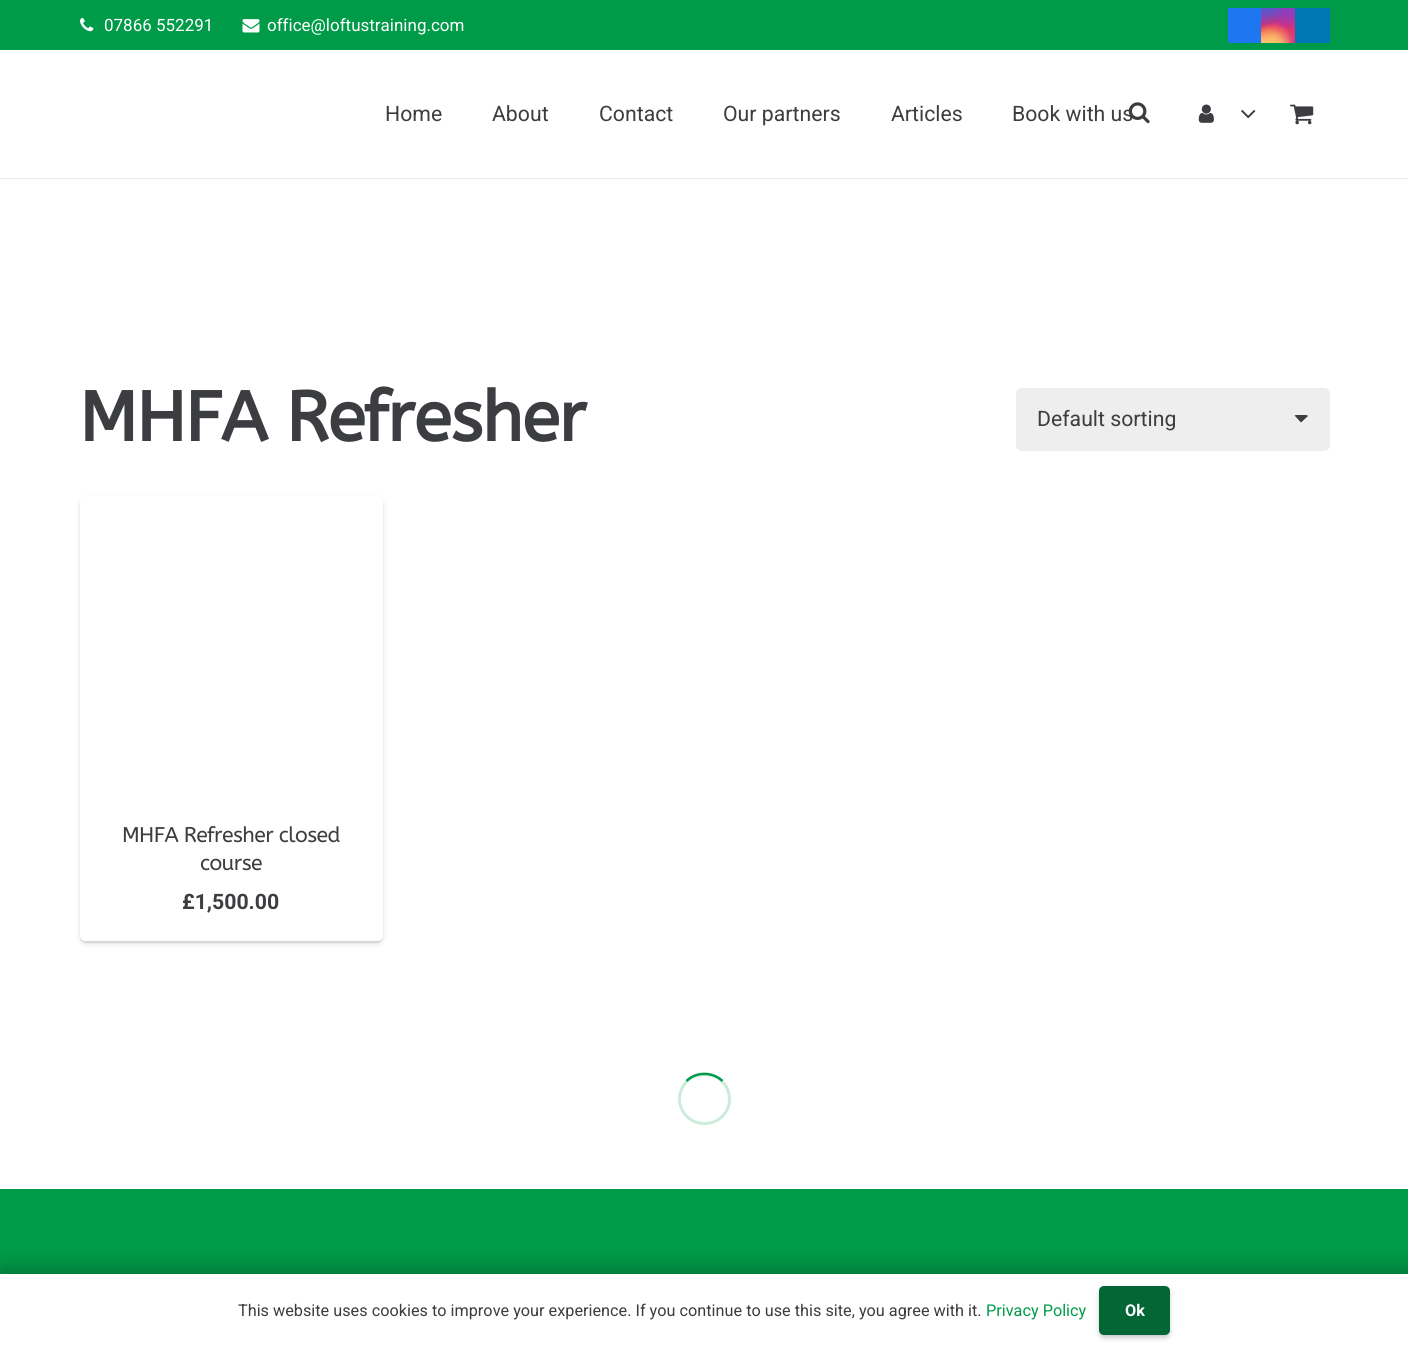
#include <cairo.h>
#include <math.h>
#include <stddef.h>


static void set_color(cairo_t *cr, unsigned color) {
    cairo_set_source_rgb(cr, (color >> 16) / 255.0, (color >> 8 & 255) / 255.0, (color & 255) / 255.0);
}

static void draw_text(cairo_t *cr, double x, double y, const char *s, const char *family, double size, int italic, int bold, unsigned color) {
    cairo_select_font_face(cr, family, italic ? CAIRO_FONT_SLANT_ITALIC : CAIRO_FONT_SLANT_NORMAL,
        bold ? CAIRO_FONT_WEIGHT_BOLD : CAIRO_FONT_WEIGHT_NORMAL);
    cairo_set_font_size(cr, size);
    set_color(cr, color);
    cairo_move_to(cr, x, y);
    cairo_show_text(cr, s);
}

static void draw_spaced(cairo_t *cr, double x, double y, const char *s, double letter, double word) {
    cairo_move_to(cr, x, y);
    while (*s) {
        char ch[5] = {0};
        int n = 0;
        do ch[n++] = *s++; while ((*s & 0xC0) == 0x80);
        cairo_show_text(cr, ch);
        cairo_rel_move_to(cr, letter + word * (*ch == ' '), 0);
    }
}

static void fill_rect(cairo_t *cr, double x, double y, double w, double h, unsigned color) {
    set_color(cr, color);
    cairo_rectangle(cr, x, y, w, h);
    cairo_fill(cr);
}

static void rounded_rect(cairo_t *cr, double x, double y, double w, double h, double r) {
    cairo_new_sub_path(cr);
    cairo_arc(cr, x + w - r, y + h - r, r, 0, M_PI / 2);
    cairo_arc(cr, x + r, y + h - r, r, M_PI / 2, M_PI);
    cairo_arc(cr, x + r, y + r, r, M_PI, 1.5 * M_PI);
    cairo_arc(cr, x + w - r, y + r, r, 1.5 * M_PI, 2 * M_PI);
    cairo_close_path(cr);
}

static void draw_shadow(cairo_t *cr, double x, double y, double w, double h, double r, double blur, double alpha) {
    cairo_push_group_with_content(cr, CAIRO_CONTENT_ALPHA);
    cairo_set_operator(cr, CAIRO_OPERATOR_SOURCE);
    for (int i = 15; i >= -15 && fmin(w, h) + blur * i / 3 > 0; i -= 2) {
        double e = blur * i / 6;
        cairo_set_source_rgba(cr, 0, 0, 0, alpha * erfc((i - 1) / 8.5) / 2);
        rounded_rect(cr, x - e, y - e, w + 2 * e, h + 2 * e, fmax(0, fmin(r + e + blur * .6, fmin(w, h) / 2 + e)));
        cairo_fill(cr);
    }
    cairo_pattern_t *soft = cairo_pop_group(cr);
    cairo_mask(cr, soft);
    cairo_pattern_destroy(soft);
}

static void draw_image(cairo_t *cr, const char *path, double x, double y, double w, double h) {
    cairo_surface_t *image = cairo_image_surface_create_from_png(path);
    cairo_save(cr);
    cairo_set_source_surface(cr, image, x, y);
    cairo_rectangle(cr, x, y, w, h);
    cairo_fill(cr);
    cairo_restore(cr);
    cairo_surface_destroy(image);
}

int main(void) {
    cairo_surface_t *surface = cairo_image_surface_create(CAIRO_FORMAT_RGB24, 1408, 1347);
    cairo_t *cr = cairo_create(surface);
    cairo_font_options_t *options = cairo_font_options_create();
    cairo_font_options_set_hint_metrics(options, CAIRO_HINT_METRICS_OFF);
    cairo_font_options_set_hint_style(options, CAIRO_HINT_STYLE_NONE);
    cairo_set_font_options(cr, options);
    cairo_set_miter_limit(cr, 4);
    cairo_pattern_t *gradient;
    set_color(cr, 0xFFFFFF);
    cairo_paint(cr);
    fill_rect(cr, 0, 0, 1408, 50, 0x009B49);
    draw_image(cr, "assets/img1.png", 80, 17, 14, 15);
    draw_text(cr, 104, 31, "07866 552291", "Roboto", 17, 0, 0, 0xFFFFFF);
    draw_image(cr, "assets/img2.png", 242, 19, 18, 14);
    draw_text(cr, 267, 31, "office@loftustraining.com", "Roboto", 17, 0, 0, 0xFFFFFF);
    fill_rect(cr, 1228, 8, 33, 35, 0x1E77F0);
    gradient = cairo_pattern_create_linear(1278, 7.5, 1278, 43);
    cairo_pattern_add_color_stop_rgba(gradient, 0, 0.396, 0.349, 0.792, 1);
    cairo_pattern_add_color_stop_rgba(gradient, 0.3, 0.737, 0.192, 0.561, 1);
    cairo_pattern_add_color_stop_rgba(gradient, 0.5, 0.894, 0.18, 0.4, 1);
    cairo_pattern_add_color_stop_rgba(gradient, 0.7, 0.98, 0.325, 0.196, 1);
    cairo_pattern_add_color_stop_rgba(gradient, 1, 1, 0.863, 0.502, 1);
    cairo_set_source(cr, gradient);
    cairo_pattern_destroy(gradient);
    cairo_rectangle(cr, 1261, 8, 34, 35);
    cairo_fill(cr);
    gradient = cairo_pattern_create_radial(0, 0, 0, 0, 0, 1);
    cairo_pattern_set_matrix(gradient, &(cairo_matrix_t){1.0 / 48, 0, 0, 1.0 / 49, -1.0 * 1295 / 48, -1.0 * 43 / 49});
    cairo_pattern_add_color_stop_rgba(gradient, 0, 0.851, 0.192, 0.478, 1);
    cairo_pattern_add_color_stop_rgba(gradient, 1, 0.851, 0.192, 0.478, 0);
    cairo_set_source(cr, gradient);
    cairo_pattern_destroy(gradient);
    cairo_rectangle(cr, 1261, 8, 34, 35);
    cairo_fill(cr);
    gradient = cairo_pattern_create_radial(0, 0, 0, 0, 0, 1);
    cairo_pattern_set_matrix(gradient, &(cairo_matrix_t){1.0 / 29, 0, 0, 1.0 / 59, -1.0 * 1282 / 29, -1.0 * 0.5 / 59});
    cairo_pattern_add_color_stop_rgba(gradient, 0, 0.537, 0.239, 0.761, 1);
    cairo_pattern_add_color_stop_rgba(gradient, 0.5, 0.537, 0.239, 0.761, 0);
    cairo_set_source(cr, gradient);
    cairo_pattern_destroy(gradient);
    cairo_rectangle(cr, 1270, 8, 25, 21);
    cairo_fill(cr);
    gradient = cairo_pattern_create_radial(0, 0, 0, 0, 0, 1);
    cairo_pattern_set_matrix(gradient, &(cairo_matrix_t){1.0 / 48, 0, 0, 1.0 / 49, -1.0 * 1295 / 48, -1.0 * 7.5 / 49});
    cairo_pattern_add_color_stop_rgba(gradient, 0, 0.537, 0.239, 0.761, 1);
    cairo_pattern_add_color_stop_rgba(gradient, 0.5, 0.537, 0.239, 0.761, 0);
    cairo_set_source(cr, gradient);
    cairo_pattern_destroy(gradient);
    cairo_rectangle(cr, 1274, 8, 21, 23);
    cairo_fill(cr);
    gradient = cairo_pattern_create_radial(0, 0, 0, 0, 0, 1);
    cairo_pattern_set_matrix(gradient, &(cairo_matrix_t){1.0 / 38, 0, 0, 1.0 / 74, -1.0 * 1268 / 38, -1.0 * -10 / 74});
    cairo_pattern_add_color_stop_rgba(gradient, 0, 0.322, 0.345, 0.812, 1);
    cairo_pattern_add_color_stop_rgba(gradient, 0.5, 0.322, 0.345, 0.812, 0);
    cairo_set_source(cr, gradient);
    cairo_pattern_destroy(gradient);
    cairo_rectangle(cr, 1261, 8, 22, 18);
    cairo_fill(cr);
    gradient = cairo_pattern_create_radial(0, 0, 0, 0, 0, 1);
    cairo_pattern_set_matrix(gradient, &(cairo_matrix_t){1.0 / 48, 0, 0, 1.0 / 62, -1.0 * 1261 / 48, -1.0 * -1.2 / 62});
    cairo_pattern_add_color_stop_rgba(gradient, 0, 0.322, 0.345, 0.812, 1);
    cairo_pattern_add_color_stop_rgba(gradient, 0.5, 0.322, 0.345, 0.812, 0);
    cairo_set_source(cr, gradient);
    cairo_pattern_destroy(gradient);
    cairo_rectangle(cr, 1261, 8, 22, 21);
    cairo_fill(cr);
    gradient = cairo_pattern_create_radial(1265, 56, 0, 1265, 56, 58);
    cairo_pattern_add_color_stop_rgba(gradient, 0, 0.996, 0.855, 0.494, 1);
    cairo_pattern_add_color_stop_rgba(gradient, 0.5, 0.996, 0.855, 0.494, 0);
    cairo_set_source(cr, gradient);
    cairo_pattern_destroy(gradient);
    cairo_rectangle(cr, 1261, 28, 29, 15);
    cairo_fill(cr);
    gradient = cairo_pattern_create_radial(1273, 43, 0, 1273, 43, 41);
    cairo_pattern_add_color_stop_rgba(gradient, 0, 0.996, 0.773, 0.392, 1);
    cairo_pattern_add_color_stop_rgba(gradient, 0.5, 0.996, 0.773, 0.392, 0);
    cairo_set_source(cr, gradient);
    cairo_pattern_destroy(gradient);
    cairo_rectangle(cr, 1261, 23, 32, 20);
    cairo_fill(cr);
    fill_rect(cr, 1295, 8, 35, 35, 0x0077B5);
    set_color(cr, 0xEBEBEB);
    cairo_new_path(cr);
    cairo_move_to(cr, 0, 178);
    cairo_line_to(cr, 0, 179);
    cairo_line_to(cr, 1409, 179);
    cairo_line_to(cr, 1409, 51);
    cairo_line_to(cr, 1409, 178);
    cairo_close_path(cr);
    cairo_fill(cr);
    draw_text(cr, 385, 121, "Home", "Roboto", 21.25, 0, 0, 0x3B3D40);
    draw_text(cr, 492, 121, "About", "Roboto", 21.25, 0, 0, 0x3B3D40);
    draw_text(cr, 599, 121, "Contact", "Roboto", 21.25, 0, 0, 0x3B3D40);
    draw_text(cr, 723, 121, "Our partners", "Roboto", 21.25, 0, 0, 0x3B3D40);
    draw_text(cr, 891, 121, "Articles", "Roboto", 21.25, 0, 0, 0x3B3D40);
    draw_image(cr, "assets/img3.png", 1128, 102, 22, 22);
    draw_text(cr, 1012, 121, "Book with us", "Roboto", 21.25, 0, 0, 0x3B3D40);
    draw_image(cr, "assets/img4.png", 1198, 104, 16, 19);
    draw_image(cr, "assets/img5.png", 1241, 110, 15, 9);
    draw_image(cr, "assets/img6.png", 1290, 104, 24, 21);
    cairo_select_font_face(cr, "ABeeZee", CAIRO_FONT_SLANT_NORMAL, CAIRO_FONT_WEIGHT_BOLD);
    cairo_set_font_size(cr, 70);
    draw_spaced(cr, 79, 441, "MHFA Refresher", -1.4, 0);
    set_color(cr, 0xEEEEEE);
    rounded_rect(cr, 1016, 388, 314, 63, 6);
    cairo_fill(cr);
    draw_text(cr, 1037, 426, "Default sorting", "Roboto", 21.25, 0, 0, 0x3B3D40);
    cairo_new_path(cr);
    cairo_move_to(cr, 1296, 415);
    cairo_curve_to(cr, 1295.5, 415, 1295, 415.5, 1294.5, 415.5);
    cairo_line_to(cr, 1301, 422.5);
    cairo_line_to(cr, 1308, 416);
    cairo_curve_to(cr, 1307.5, 415, 1306.5, 415, 1304.5, 415);
    cairo_close_path(cr);
    cairo_fill(cr);
    set_color(cr, 0x000000);
    draw_shadow(cr, 80, 499, 303, 445, 6, 3, 0.1);
    draw_shadow(cr, 80, 498, 303, 445, 6, 0.5, 0.1);
    set_color(cr, 0xFFFFFF);
    rounded_rect(cr, 80, 496, 303, 445, 6);
    cairo_fill(cr);
    cairo_new_path(cr);
    cairo_move_to(cr, 80, 800);
    cairo_line_to(cr, 383, 800);
    cairo_line_to(cr, 383, 935);
    cairo_curve_to(cr, 383, 938.5, 380.5, 941, 377, 941);
    cairo_line_to(cr, 86, 941);
    cairo_curve_to(cr, 82.5, 941, 80, 938.5, 80, 935);
    cairo_close_path(cr);
    cairo_fill(cr);
    cairo_select_font_face(cr, "ABeeZee", CAIRO_FONT_SLANT_NORMAL, CAIRO_FONT_WEIGHT_NORMAL);
    set_color(cr, 0x3B3D40);
    draw_spaced(cr, 122, 842, "MHFA Refresher closed", -0.6, 0);
    draw_spaced(cr, 200, 870, "course", -0.6, 0);
    draw_text(cr, 182, 909, "£1,500.00", "Roboto", 21.25, 0, 1, 0x3B3D40);
    rounded_rect(cr, 679.5, 1074.5, 50, 49, 24.5);
    set_color(cr, 0xCCEBDB);
    cairo_set_line_width(cr, 3);
    cairo_stroke(cr);
    cairo_new_path(cr);
    cairo_move_to(cr, 686.5, 1081);
    cairo_curve_to(cr, 696, 1071.5, 712.5, 1071.5, 722.5, 1081);
    set_color(cr, 0x009B49);
    cairo_set_line_width(cr, 2.5);
    cairo_stroke(cr);
    fill_rect(cr, 0, 1189, 1408, 85, 0x009B49);
    set_color(cr, 0x000000);
    draw_shadow(cr, 0, 1268, 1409, 73, 0, 9.5, 0.25);
    fill_rect(cr, 0, 1274, 1408, 73, 0xFFFFFF);
    draw_text(cr, 238, 1316, "This website uses cookies to improve your experience. If you continue to use this site, you agree with it.", "Roboto", 16.25, 0, 0, 0x3B3D40);
    draw_text(cr, 986, 1316, "Privacy Policy", "Roboto", 16.25, 0, 0, 0x009B49);
    set_color(cr, 0x000000);
    draw_shadow(cr, 1099, 1289, 71, 49, 5, 2.5, 0.2);
    set_color(cr, 0x036635);
    rounded_rect(cr, 1099, 1286, 71, 49, 5);
    cairo_fill(cr);
    draw_text(cr, 1125, 1316, "Ok", "Roboto", 16.25, 0, 1, 0xFFFFFF);
    cairo_surface_write_to_png(surface, "output.png");
    cairo_font_options_destroy(options);
    cairo_destroy(cr);
    cairo_surface_destroy(surface);
    return 0;
}
